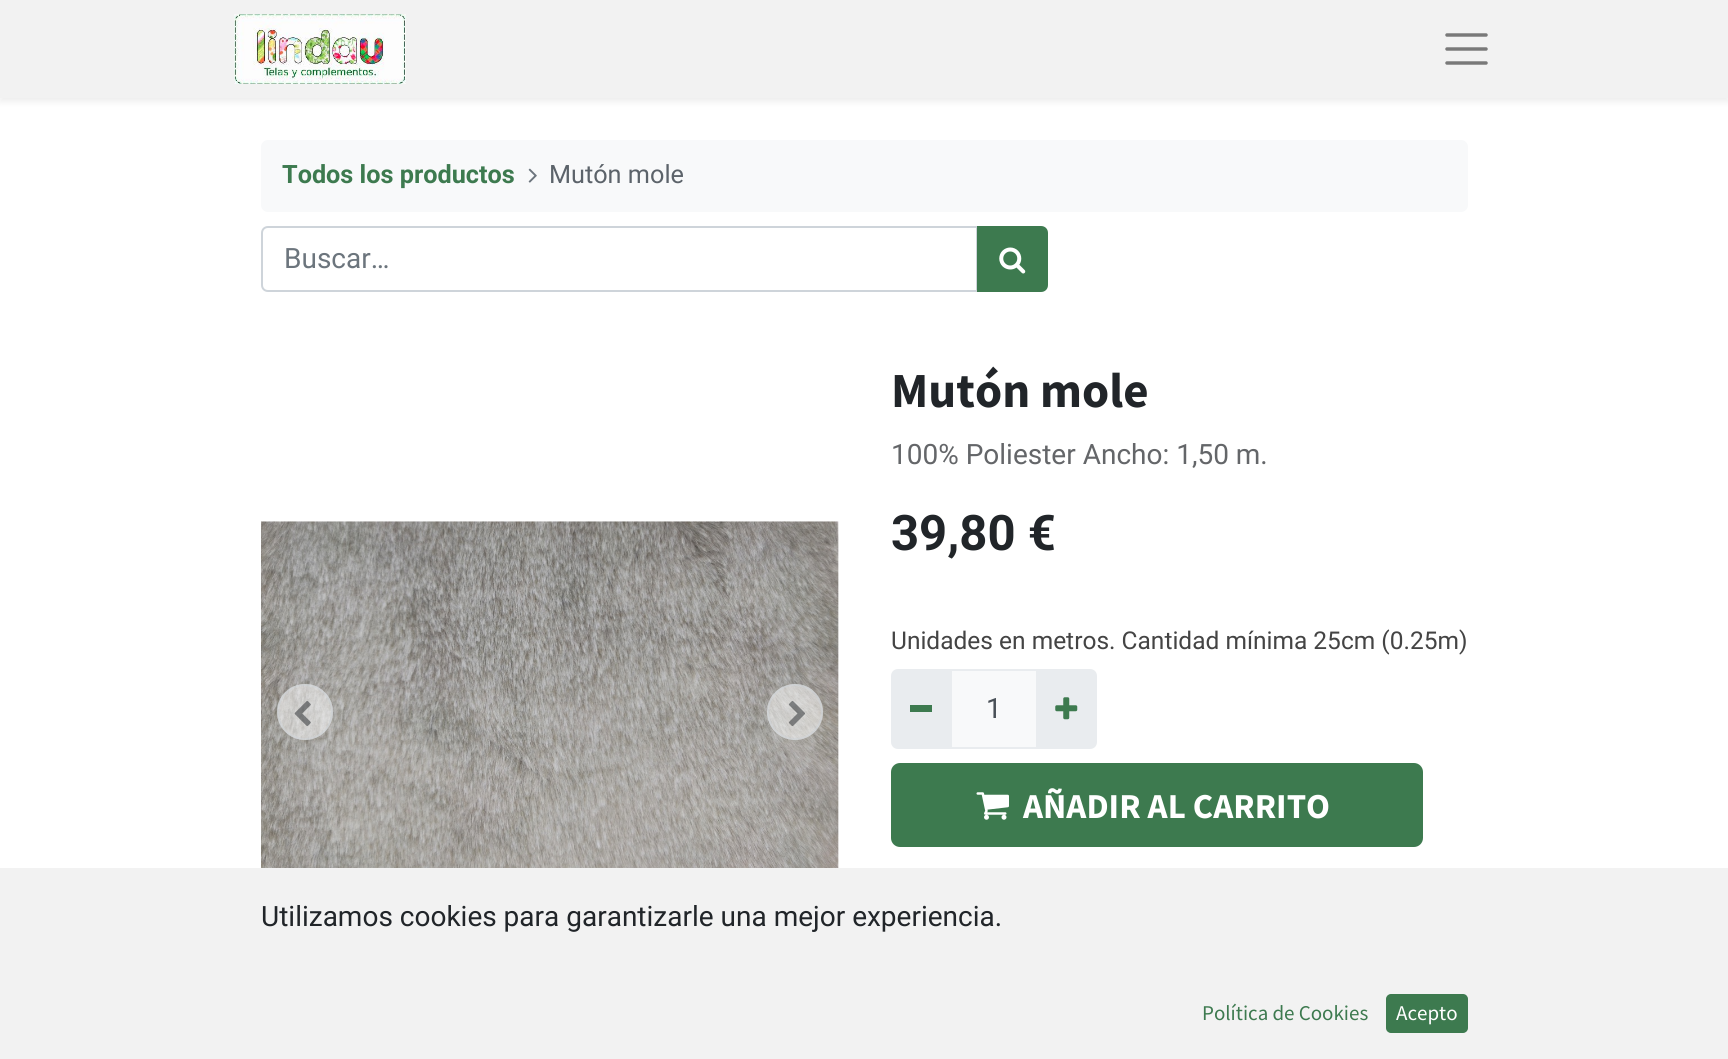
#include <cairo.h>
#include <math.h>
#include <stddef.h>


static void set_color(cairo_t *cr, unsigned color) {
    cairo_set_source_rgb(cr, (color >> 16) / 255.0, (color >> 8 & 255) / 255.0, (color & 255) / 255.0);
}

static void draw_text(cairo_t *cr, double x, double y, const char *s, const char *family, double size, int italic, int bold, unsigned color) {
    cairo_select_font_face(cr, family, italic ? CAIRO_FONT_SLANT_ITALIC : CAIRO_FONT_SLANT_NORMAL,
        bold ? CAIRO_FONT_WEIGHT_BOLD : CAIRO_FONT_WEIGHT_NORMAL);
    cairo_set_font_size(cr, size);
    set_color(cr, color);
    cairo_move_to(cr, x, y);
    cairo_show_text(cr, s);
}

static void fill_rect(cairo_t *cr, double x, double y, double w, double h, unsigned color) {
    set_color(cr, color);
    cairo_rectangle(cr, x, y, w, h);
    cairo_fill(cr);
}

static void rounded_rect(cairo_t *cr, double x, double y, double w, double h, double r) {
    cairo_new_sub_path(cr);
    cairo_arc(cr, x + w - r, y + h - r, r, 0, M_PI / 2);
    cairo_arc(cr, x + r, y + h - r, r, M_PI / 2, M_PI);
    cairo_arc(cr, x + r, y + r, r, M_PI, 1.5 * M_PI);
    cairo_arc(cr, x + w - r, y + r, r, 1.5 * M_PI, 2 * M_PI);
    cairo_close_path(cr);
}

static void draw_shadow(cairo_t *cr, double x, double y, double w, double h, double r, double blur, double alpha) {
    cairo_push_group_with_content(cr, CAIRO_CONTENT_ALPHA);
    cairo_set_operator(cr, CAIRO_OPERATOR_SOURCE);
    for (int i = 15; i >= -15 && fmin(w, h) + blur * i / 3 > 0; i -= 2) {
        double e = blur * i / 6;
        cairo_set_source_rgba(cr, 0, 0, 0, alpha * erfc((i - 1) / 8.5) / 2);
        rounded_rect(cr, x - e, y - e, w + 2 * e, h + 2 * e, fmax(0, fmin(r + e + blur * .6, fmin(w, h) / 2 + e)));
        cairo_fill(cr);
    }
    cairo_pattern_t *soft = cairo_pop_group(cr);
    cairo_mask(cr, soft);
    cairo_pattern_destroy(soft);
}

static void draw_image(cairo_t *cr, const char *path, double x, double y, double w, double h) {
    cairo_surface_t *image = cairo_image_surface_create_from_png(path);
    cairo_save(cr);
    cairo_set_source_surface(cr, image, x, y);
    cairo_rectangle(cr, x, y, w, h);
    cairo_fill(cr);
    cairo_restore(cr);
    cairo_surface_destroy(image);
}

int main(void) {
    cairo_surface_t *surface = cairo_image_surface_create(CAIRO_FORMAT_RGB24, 1728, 1059);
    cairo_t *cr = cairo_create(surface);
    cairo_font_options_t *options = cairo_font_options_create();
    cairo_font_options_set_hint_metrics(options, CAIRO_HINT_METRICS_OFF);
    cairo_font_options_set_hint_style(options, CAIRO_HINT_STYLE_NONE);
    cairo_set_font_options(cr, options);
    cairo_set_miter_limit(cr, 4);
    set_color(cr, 0xFFFFFF);
    cairo_paint(cr);
    set_color(cr, 0x000000);
    draw_shadow(cr, 0, 4, 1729, 98, 0, 3.5, 0.07);
    fill_rect(cr, 0, 0, 1728, 98, 0xF2F2F2);
    draw_image(cr, "assets/img1.png", 234, 14, 172, 70);
    cairo_new_path(cr);
    cairo_move_to(cr, 1447, 35);
    cairo_line_to(cr, 1486, 35);
    cairo_move_to(cr, 1447, 49);
    cairo_line_to(cr, 1486, 49);
    cairo_move_to(cr, 1447, 63);
    cairo_line_to(cr, 1486, 63);
    set_color(cr, 0x797979);
    cairo_set_line_width(cr, 3.5);
    cairo_set_line_cap(cr, CAIRO_LINE_CAP_ROUND);
    cairo_stroke(cr);
    set_color(cr, 0xF8F9FA);
    rounded_rect(cr, 261, 140, 1207, 72, 7);
    cairo_fill(cr);
    draw_text(cr, 282, 183, "Todos los productos", "Roboto", 25.25, 0, 1, 0x3D7A4F);
    draw_image(cr, "assets/img2.png", 528, 168, 9, 15);
    draw_text(cr, 549, 183, "Mutón mole", "Roboto", 25.25, 0, 0, 0x5C636A);
    cairo_new_path(cr);
    cairo_move_to(cr, 268, 227);
    cairo_line_to(cr, 977, 227);
    cairo_line_to(cr, 977, 291);
    cairo_line_to(cr, 268, 291);
    cairo_curve_to(cr, 264.5, 291, 262, 288.5, 262, 285);
    cairo_line_to(cr, 262, 233);
    cairo_curve_to(cr, 262, 229.5, 264.5, 227, 268, 227);
    cairo_close_path(cr);
    set_color(cr, 0xCED4DA);
    cairo_set_line_width(cr, 2);
    cairo_set_line_cap(cr, CAIRO_LINE_CAP_BUTT);
    cairo_stroke(cr);
    draw_text(cr, 284, 268, "Buscar…", "Roboto", 28, 0, 0, 0x6C757D);
    set_color(cr, 0x3D7A4F);
    cairo_new_path(cr);
    cairo_move_to(cr, 978, 227);
    cairo_line_to(cr, 1041, 227);
    cairo_curve_to(cr, 1044.5, 227, 1047, 229.5, 1047, 233);
    cairo_line_to(cr, 1047, 285);
    cairo_curve_to(cr, 1047, 288.5, 1044.5, 291, 1041, 291);
    cairo_line_to(cr, 978, 291);
    cairo_close_path(cr);
    cairo_fill_preserve(cr);
    cairo_stroke(cr);
    draw_image(cr, "assets/img3.png", 999, 247, 27, 27);
    draw_image(cr, "assets/img4.png", 261, 521, 578, 347);
    cairo_set_source_rgba(cr, 1, 1, 1, 0.5);
    cairo_arc(cr, 305, 712, 28, 0, 2 * M_PI);
    cairo_fill(cr);
    cairo_arc(cr, 305, 712, 27, 0, 2 * M_PI);
    cairo_set_source_rgba(cr, 0.808, 0.831, 0.855, 0.5);
    cairo_stroke(cr);
    draw_image(cr, "assets/img5.png", 294, 701, 17, 25);
    cairo_set_source_rgba(cr, 1, 1, 1, 0.5);
    cairo_arc(cr, 795, 712, 28, 0, 2 * M_PI);
    cairo_fill(cr);
    cairo_arc(cr, 795, 712, 27, 0, 2 * M_PI);
    cairo_set_source_rgba(cr, 0.808, 0.831, 0.855, 0.5);
    cairo_stroke(cr);
    draw_image(cr, "assets/img6.png", 788, 700, 17, 26);
    draw_text(cr, 891, 407, "Mutón mole", "Source Sans Pro", 49, 0, 1, 0x212529);
    draw_text(cr, 891, 464, "100% Poliester Ancho: 1,50 m.", "Roboto", 28, 0, 0, 0x646669);
    draw_text(cr, 891, 550, "39,80 €", "Roboto", 49, 0, 1, 0x212529);
    draw_text(cr, 891, 649, "Unidades en metros. Cantidad mínima 25cm (0.25m)", "Roboto", 24.5, 0, 0, 0x444444);
    set_color(cr, 0xF8F9FA);
    cairo_rectangle(cr, 951, 670, 86, 78);
    cairo_fill_preserve(cr);
    set_color(cr, 0xE9ECEF);
    cairo_stroke(cr);
    cairo_new_path(cr);
    cairo_move_to(cr, 898, 669);
    cairo_line_to(cr, 952, 669);
    cairo_line_to(cr, 952, 749);
    cairo_line_to(cr, 898, 749);
    cairo_curve_to(cr, 894, 749, 891, 746, 891, 742);
    cairo_line_to(cr, 891, 676);
    cairo_curve_to(cr, 891, 672, 894, 669, 898, 669);
    cairo_close_path(cr);
    cairo_fill(cr);
    fill_rect(cr, 910, 705, 22, 7, 0x3D7A4F);
    draw_text(cr, 986, 718, "1", "Roboto", 28, 0, 0, 0x495057);
    set_color(cr, 0xE9ECEF);
    cairo_new_path(cr);
    cairo_move_to(cr, 1036, 669);
    cairo_line_to(cr, 1090, 669);
    cairo_curve_to(cr, 1094, 669, 1097, 672, 1097, 676);
    cairo_line_to(cr, 1097, 742);
    cairo_curve_to(cr, 1097, 746, 1094, 749, 1090, 749);
    cairo_line_to(cr, 1036, 749);
    cairo_close_path(cr);
    cairo_fill(cr);
    draw_image(cr, "assets/img7.png", 1055, 697, 23, 23);
    set_color(cr, 0x3D7A4F);
    rounded_rect(cr, 892, 764, 530, 82, 8);
    cairo_fill_preserve(cr);
    cairo_stroke(cr);
    draw_image(cr, "assets/img8.png", 976, 792, 33, 28);
    draw_text(cr, 1023, 818, "AÑADIR AL CARRITO", "Source Sans Pro", 35, 0, 1, 0xFFFFFF);
    fill_rect(cr, 0, 868, 1728, 191, 0xF2F2F2);
    draw_text(cr, 261, 926, "Utilizamos cookies para garantizarle una mejor experiencia.", "Roboto", 28, 0, 0, 0x212529);
    draw_text(cr, 1202, 1020, "Política de Cookies", "Source Sans Pro", 21, 0, 0, 0x3D7A4F);
    rounded_rect(cr, 1387, 995, 80, 37, 4);
    cairo_fill_preserve(cr);
    cairo_stroke(cr);
    draw_text(cr, 1396, 1020, "Acepto", "Source Sans Pro", 21, 0, 0, 0xFFFFFF);
    cairo_surface_write_to_png(surface, "output.png");
    cairo_font_options_destroy(options);
    cairo_destroy(cr);
    cairo_surface_destroy(surface);
    return 0;
}
